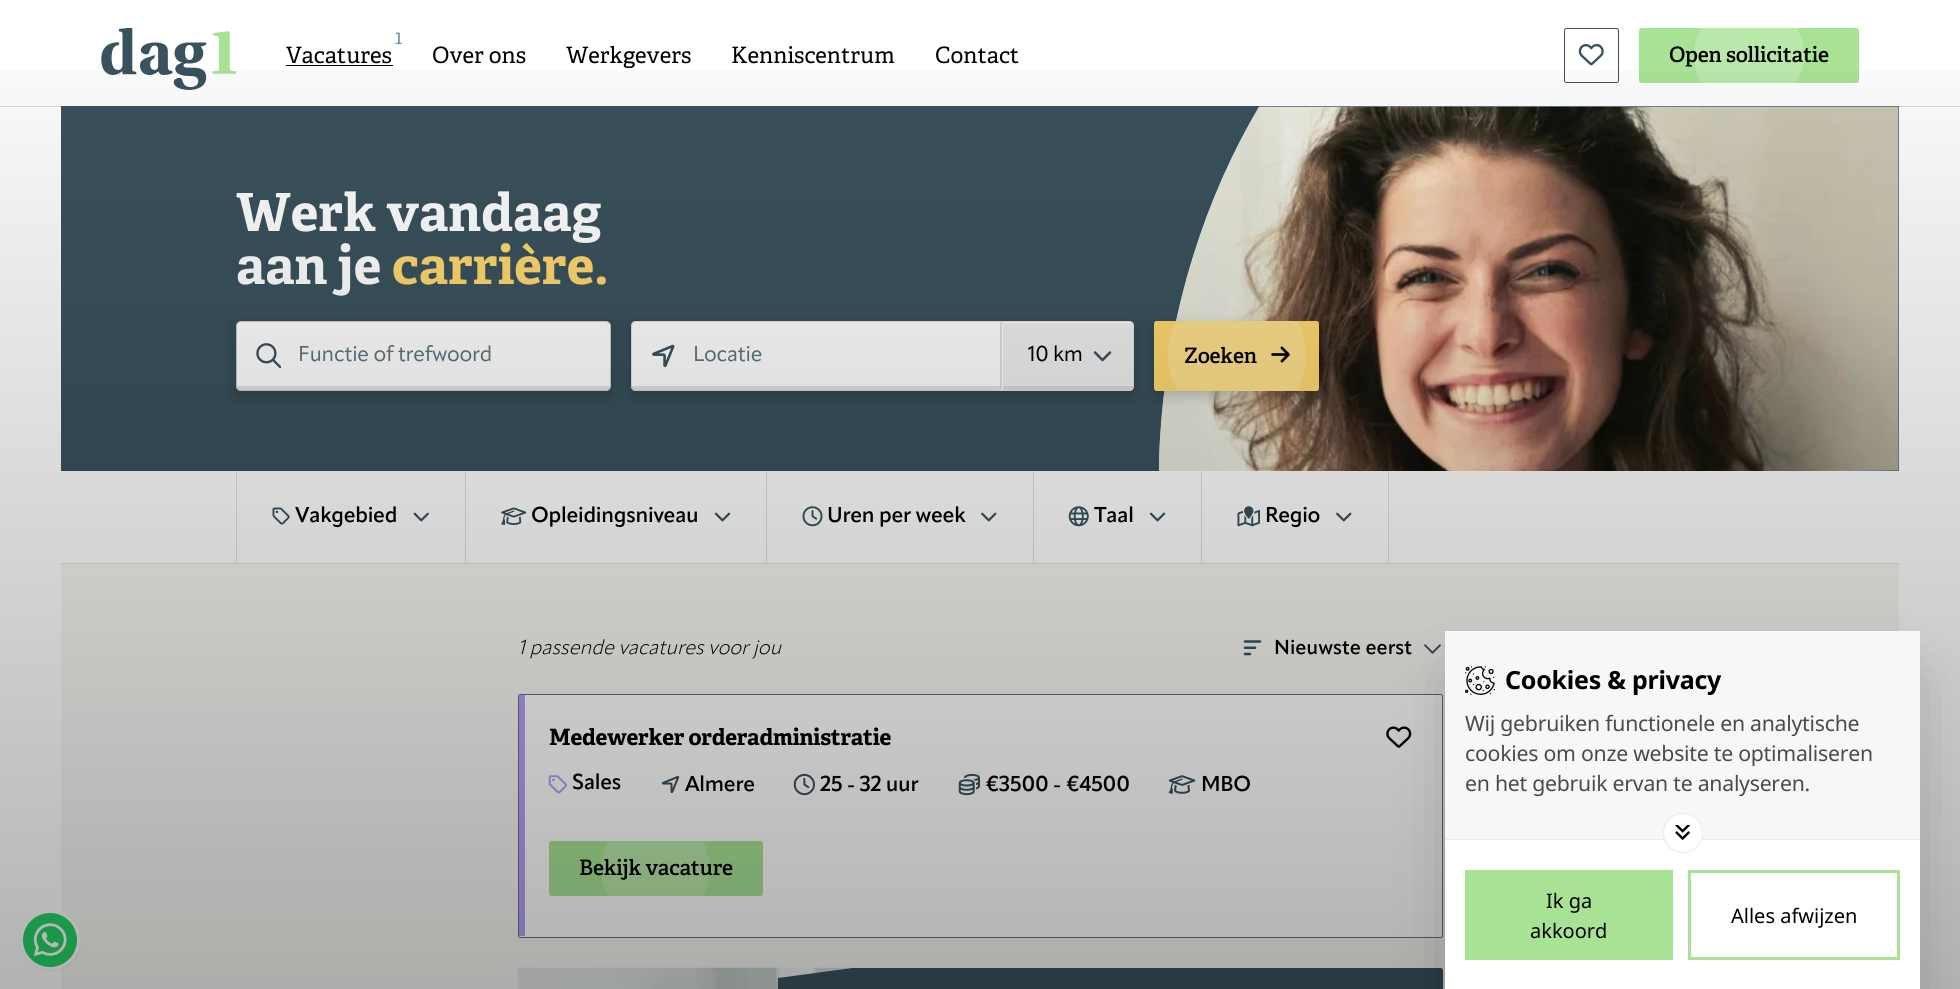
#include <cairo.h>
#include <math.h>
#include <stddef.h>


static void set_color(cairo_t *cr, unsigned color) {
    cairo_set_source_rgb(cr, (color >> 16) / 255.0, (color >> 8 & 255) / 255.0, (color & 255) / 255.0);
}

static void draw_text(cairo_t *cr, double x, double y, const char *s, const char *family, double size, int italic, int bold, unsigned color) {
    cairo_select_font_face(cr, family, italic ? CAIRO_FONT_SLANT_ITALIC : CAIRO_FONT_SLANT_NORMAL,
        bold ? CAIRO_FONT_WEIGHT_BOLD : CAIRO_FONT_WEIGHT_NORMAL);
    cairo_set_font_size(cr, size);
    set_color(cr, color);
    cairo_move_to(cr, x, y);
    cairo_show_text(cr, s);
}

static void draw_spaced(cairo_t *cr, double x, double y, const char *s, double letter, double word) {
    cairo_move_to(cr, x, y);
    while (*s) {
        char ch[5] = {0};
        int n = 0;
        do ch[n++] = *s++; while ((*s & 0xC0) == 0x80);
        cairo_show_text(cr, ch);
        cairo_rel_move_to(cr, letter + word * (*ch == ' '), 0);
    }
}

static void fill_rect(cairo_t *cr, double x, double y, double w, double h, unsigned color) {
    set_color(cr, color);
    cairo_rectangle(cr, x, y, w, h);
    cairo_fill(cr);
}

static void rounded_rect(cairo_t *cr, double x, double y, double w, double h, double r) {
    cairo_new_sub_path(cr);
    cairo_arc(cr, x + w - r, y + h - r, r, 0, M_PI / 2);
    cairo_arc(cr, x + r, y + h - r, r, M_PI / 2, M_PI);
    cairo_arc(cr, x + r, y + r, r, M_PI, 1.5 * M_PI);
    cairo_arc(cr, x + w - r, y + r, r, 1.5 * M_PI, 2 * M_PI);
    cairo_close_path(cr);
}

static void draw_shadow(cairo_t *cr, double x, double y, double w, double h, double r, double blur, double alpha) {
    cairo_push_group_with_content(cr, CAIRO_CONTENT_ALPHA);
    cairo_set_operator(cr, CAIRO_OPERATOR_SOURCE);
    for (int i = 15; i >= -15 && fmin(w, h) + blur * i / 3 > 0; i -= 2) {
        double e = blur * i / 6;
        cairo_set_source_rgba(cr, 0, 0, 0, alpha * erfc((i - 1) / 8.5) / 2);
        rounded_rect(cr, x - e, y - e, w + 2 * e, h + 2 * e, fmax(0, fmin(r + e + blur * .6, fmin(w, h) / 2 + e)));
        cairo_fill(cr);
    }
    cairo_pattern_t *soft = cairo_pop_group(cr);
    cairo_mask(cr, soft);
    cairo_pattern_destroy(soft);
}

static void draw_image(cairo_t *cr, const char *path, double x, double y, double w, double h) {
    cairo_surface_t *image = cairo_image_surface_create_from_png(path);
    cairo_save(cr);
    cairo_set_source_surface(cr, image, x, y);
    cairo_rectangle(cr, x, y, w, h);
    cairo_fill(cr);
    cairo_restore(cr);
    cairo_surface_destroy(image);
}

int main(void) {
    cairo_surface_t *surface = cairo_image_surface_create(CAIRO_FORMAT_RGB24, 1960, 989);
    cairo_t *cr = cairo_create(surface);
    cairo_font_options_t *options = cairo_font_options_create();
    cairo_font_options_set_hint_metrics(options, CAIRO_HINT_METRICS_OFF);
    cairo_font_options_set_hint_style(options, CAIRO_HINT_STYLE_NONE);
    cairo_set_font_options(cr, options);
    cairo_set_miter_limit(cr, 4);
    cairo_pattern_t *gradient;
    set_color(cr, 0xFFFFFF);
    cairo_paint(cr);
    draw_image(cr, "assets/img1.png", 101, 28, 135, 62);
    draw_text(cr, 395, 44, "1", "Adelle", 20, 0, 0, 0x78909C);
    draw_text(cr, 286, 63, "Vacatures", "Adelle", 22.5, 0, 0, 0x000000);
    fill_rect(cr, 286, 65, 107, 1, 0x000000);
    draw_text(cr, 432, 63, "Over ons", "Adelle", 22.5, 0, 0, 0x000000);
    draw_text(cr, 566, 63, "Werkgevers", "Adelle", 22.5, 0, 0, 0x000000);
    draw_text(cr, 731, 63, "Kenniscentrum", "Adelle", 22.5, 0, 0, 0x000000);
    draw_text(cr, 935, 63, "Contact", "Adelle", 22.5, 0, 0, 0x000000);
    rounded_rect(cr, 1564.5, 28.5, 54, 54, 2);
    set_color(cr, 0x3A525E);
    cairo_set_line_width(cr, 1);
    cairo_stroke(cr);
    draw_image(cr, "assets/img2.png", 1578, 44, 26, 22);
    set_color(cr, 0xA8E395);
    rounded_rect(cr, 1639, 28, 220, 55, 2.5);
    cairo_fill(cr);
    fill_rect(cr, 61, 106, 1838, 365, 0x3A525E);
    draw_image(cr, "assets/img7.png", 1158, 106, 741, 365);
    cairo_set_source_rgba(cr, 0.227, 0.322, 0.369, 0.2);
    cairo_rectangle(cr, 0, 106, 1960, 1);
    cairo_fill(cr);
    cairo_save(cr);
    rounded_rect(cr, 1639, 28, 220, 55, 2.5);
    cairo_clip(cr);
    set_color(cr, 0xB9E9AA);
    cairo_arc(cr, 1749, 55, 55, 0, 2 * M_PI);
    cairo_fill(cr);
    cairo_restore(cr);
    cairo_select_font_face(cr, "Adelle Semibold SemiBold", CAIRO_FONT_SLANT_NORMAL, CAIRO_FONT_WEIGHT_NORMAL);
    cairo_set_font_size(cr, 21.25);
    set_color(cr, 0x000000);
    draw_spaced(cr, 1669, 62, "Open sollicitatie", -0.25, 0);
    draw_text(cr, 236, 231, "Werk vandaag", "Adelle", 52.5, 0, 1, 0xFFFFFF);
    draw_text(cr, 236, 284, "aan je", "Adelle", 52.5, 0, 1, 0xFFFFFF);
    draw_text(cr, 392, 284, "carrière.", "Adelle", 52.5, 0, 1, 0xFFD86F);
    set_color(cr, 0x000000);
    draw_shadow(cr, 236, 326, 375, 70, 0, 7.5, 0.2);
    draw_shadow(cr, 631, 326, 503, 70, 2.5, 7.5, 0.2);
    set_color(cr, 0xFFFFFF);
    rounded_rect(cr, 236.5, 321.5, 374, 69, 4.5);
    cairo_fill_preserve(cr);
    set_color(cr, 0xCCCCCC);
    cairo_stroke(cr);
    draw_image(cr, "assets/img3.png", 256, 343, 26, 26);
    cairo_select_font_face(cr, "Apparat", CAIRO_FONT_SLANT_NORMAL, CAIRO_FONT_WEIGHT_NORMAL);
    cairo_set_font_size(cr, 21.25);
    set_color(cr, 0x61757E);
    draw_spaced(cr, 298, 361, "Functie of trefwoord", -0.25, 0);
    cairo_set_source_rgba(cr, 0.761, 0.776, 0.784, 0.5);
    cairo_new_path(cr);
    cairo_move_to(cr, 236, 386);
    cairo_line_to(cr, 611, 386);
    cairo_curve_to(cr, 611, 389, 609, 391, 606, 391);
    cairo_line_to(cr, 241, 391);
    cairo_curve_to(cr, 238, 391, 236, 389, 236, 386);
    cairo_close_path(cr);
    cairo_fill(cr);
    set_color(cr, 0xFFFFFF);
    cairo_new_path(cr);
    cairo_move_to(cr, 636, 321);
    cairo_line_to(cr, 1001, 321);
    cairo_line_to(cr, 1001, 391);
    cairo_line_to(cr, 636, 391);
    cairo_curve_to(cr, 633, 391, 631, 389, 631, 386);
    cairo_line_to(cr, 631, 326);
    cairo_curve_to(cr, 631, 323, 633, 321, 636, 321);
    cairo_close_path(cr);
    cairo_fill(cr);
    cairo_new_path(cr);
    cairo_move_to(cr, 636, 321.5);
    cairo_line_to(cr, 1000.5, 321.5);
    cairo_line_to(cr, 1000.5, 390.5);
    cairo_line_to(cr, 636, 390.5);
    cairo_curve_to(cr, 633.5, 390.5, 631.5, 388.5, 631.5, 386);
    cairo_line_to(cr, 631.5, 326);
    cairo_curve_to(cr, 631.5, 323.5, 633.5, 321.5, 636, 321.5);
    cairo_close_path(cr);
    cairo_set_source_rgba(cr, 0.761, 0.776, 0.784, 0.5);
    cairo_stroke(cr);
    draw_image(cr, "assets/img4.png", 652, 344, 23, 24);
    set_color(cr, 0x61757E);
    draw_spaced(cr, 693, 361, "Locatie", -0.25, 0);
    cairo_set_source_rgba(cr, 0.761, 0.776, 0.784, 0.5);
    cairo_new_path(cr);
    cairo_move_to(cr, 631, 386);
    cairo_line_to(cr, 1001, 386);
    cairo_curve_to(cr, 1001, 389, 999, 391, 996, 391);
    cairo_line_to(cr, 636, 391);
    cairo_curve_to(cr, 633, 391, 631, 389, 631, 386);
    cairo_close_path(cr);
    cairo_fill(cr);
    set_color(cr, 0xFFFFFF);
    cairo_new_path(cr);
    cairo_move_to(cr, 1001, 321);
    cairo_line_to(cr, 1129, 321);
    cairo_curve_to(cr, 1132, 321, 1134, 323, 1134, 326);
    cairo_line_to(cr, 1134, 386);
    cairo_curve_to(cr, 1134, 389, 1132, 391, 1129, 391);
    cairo_line_to(cr, 1001, 391);
    cairo_close_path(cr);
    cairo_fill(cr);
    cairo_new_path(cr);
    cairo_move_to(cr, 1001.5, 321.5);
    cairo_line_to(cr, 1129, 321.5);
    cairo_curve_to(cr, 1131.5, 321.5, 1133.5, 323.5, 1133.5, 326);
    cairo_line_to(cr, 1133.5, 386);
    cairo_curve_to(cr, 1133.5, 388.5, 1131.5, 390.5, 1129, 390.5);
    cairo_line_to(cr, 1001.5, 390.5);
    cairo_close_path(cr);
    cairo_set_source_rgba(cr, 0.761, 0.776, 0.784, 0.5);
    cairo_stroke(cr);
    fill_rect(cr, 1003, 323, 130, 63, 0xEFEFEF);
    set_color(cr, 0x000000);
    draw_spaced(cr, 1028, 361, "10 km", -0.25, 0);
    draw_image(cr, "assets/img5.png", 1093, 351, 19, 11);
    fill_rect(cr, 1003, 386, 130, 4, 0xD9DBDC);
    set_color(cr, 0x000000);
    draw_shadow(cr, 1154, 326, 165, 70, 2.5, 7.5, 0.2);
    set_color(cr, 0xFFD86F);
    rounded_rect(cr, 1154, 321, 165, 70, 2.5);
    cairo_fill(cr);
    cairo_save(cr);
    rounded_rect(cr, 1154, 321, 165, 70, 2.5);
    cairo_clip(cr);
    set_color(cr, 0xFFE08C);
    rounded_rect(cr, 1168, 286, 138, 139, 69);
    cairo_fill(cr);
    cairo_restore(cr);
    cairo_select_font_face(cr, "Adelle Semibold SemiBold", CAIRO_FONT_SLANT_NORMAL, CAIRO_FONT_WEIGHT_NORMAL);
    set_color(cr, 0x000000);
    draw_spaced(cr, 1184, 363, "Zoeken", -0.25, 0);
    draw_image(cr, "assets/img6.png", 1271, 346, 19, 17);
    fill_rect(cr, 61, 564, 1838, 425, 0xF7F6F3);
    set_color(cr, 0x000000);
    draw_shadow(cr, 20, 911, 60, 60, 30, 1, 0.05);
    set_color(cr, 0x25D366);
    cairo_arc(cr, 50, 940, 28.5, 0, 2 * M_PI);
    cairo_fill_preserve(cr);
    set_color(cr, 0xFFFFFF);
    cairo_set_line_width(cr, 3);
    cairo_stroke(cr);
    draw_image(cr, "assets/img8.png", 33, 923, 34, 33);
    fill_rect(cr, 61, 563, 1838, 1, 0xE4E0D7);
    fill_rect(cr, 236, 471, 1, 92, 0xE4E0D7);
    fill_rect(cr, 465, 471, 1, 92, 0xE4E0D7);
    draw_image(cr, "assets/img9.png", 272, 507, 18, 18);
    cairo_select_font_face(cr, "Apparat SemiBold", CAIRO_FONT_SLANT_NORMAL, CAIRO_FONT_WEIGHT_NORMAL);
    set_color(cr, 0x000000);
    draw_spaced(cr, 295, 522, "Vakgebied", -0.25, 0);
    draw_image(cr, "assets/img10.png", 413, 512, 16, 10);
    fill_rect(cr, 766, 471, 1, 92, 0xE4E0D7);
    draw_image(cr, "assets/img11.png", 501, 507, 26, 18);
    set_color(cr, 0x000000);
    draw_spaced(cr, 531, 522, "Opleidingsniveau", -0.25, 0);
    draw_image(cr, "assets/img12.png", 714, 512, 17, 10);
    fill_rect(cr, 1033, 471, 1, 92, 0xE4E0D7);
    draw_image(cr, "assets/img13.png", 802, 506, 21, 21);
    set_color(cr, 0x000000);
    draw_spaced(cr, 827, 522, "Uren per week", -0.25, 0);
    draw_image(cr, "assets/img14.png", 981, 512, 16, 10);
    fill_rect(cr, 1201, 471, 1, 92, 0xE4E0D7);
    draw_image(cr, "assets/img15.png", 1068, 506, 21, 21);
    set_color(cr, 0x000000);
    draw_spaced(cr, 1094, 522, "Taal", -0.25, 0);
    draw_image(cr, "assets/img12.png", 1149, 512, 17, 10);
    fill_rect(cr, 1388, 471, 1, 92, 0xE4E0D7);
    draw_image(cr, "assets/img16.png", 1237, 506, 23, 21);
    set_color(cr, 0x000000);
    draw_spaced(cr, 1265, 522, "Regio", -0.25, 0);
    draw_image(cr, "assets/img14.png", 1336, 512, 16, 10);
    draw_text(cr, 518, 654, "1 passende vacatures voor jou", "Apparat Light", 20, 1, 0, 0x000000);
    draw_image(cr, "assets/img17.png", 1243, 640, 19, 16);
    draw_text(cr, 1274, 654, "Nieuwste eerst", "Apparat SemiBold", 20, 0, 0, 0x000000);
    draw_image(cr, "assets/img18.png", 1424, 644, 17, 10);
    set_color(cr, 0xFFFFFF);
    rounded_rect(cr, 518, 694, 925, 244, 2.5);
    cairo_fill(cr);
    rounded_rect(cr, 518.5, 694.5, 924, 243, 2);
    cairo_set_source_rgba(cr, 0.227, 0.322, 0.369, 0.8);
    cairo_set_line_width(cr, 1);
    cairo_stroke(cr);
    set_color(cr, 0xB79DF5);
    cairo_new_path(cr);
    cairo_move_to(cr, 520, 695);
    cairo_line_to(cr, 525, 695);
    cairo_line_to(cr, 525, 936);
    cairo_line_to(cr, 520, 936);
    cairo_curve_to(cr, 519.5, 936, 519, 935.5, 519, 935);
    cairo_line_to(cr, 519, 696);
    cairo_curve_to(cr, 519, 695.5, 519.5, 695, 520, 695);
    cairo_close_path(cr);
    cairo_fill(cr);
    cairo_select_font_face(cr, "Adelle", CAIRO_FONT_SLANT_NORMAL, CAIRO_FONT_WEIGHT_BOLD);
    cairo_set_font_size(cr, 22.5);
    set_color(cr, 0x000000);
    draw_spaced(cr, 549, 745, "Medewerker orderadministratie", -0.25, 0);
    draw_image(cr, "assets/img19.png", 1386, 726, 26, 22);
    draw_image(cr, "assets/img20.png", 548, 775, 19, 19);
    cairo_select_font_face(cr, "Apparat SemiBold", CAIRO_FONT_SLANT_NORMAL, CAIRO_FONT_WEIGHT_NORMAL);
    cairo_set_font_size(cr, 21.25);
    draw_spaced(cr, 572, 789, "Sales", -0.25, 0);
    draw_image(cr, "assets/img21.png", 661, 775, 19, 19);
    draw_spaced(cr, 685, 791, "Almere", -0.25, 0);
    draw_image(cr, "assets/img22.png", 793, 773, 22, 23);
    draw_spaced(cr, 820, 791, "25 - 32 uur", -0.25, 0);
    draw_image(cr, "assets/img23.png", 958, 773, 22, 23);
    draw_spaced(cr, 985, 791, "€3500 - €4500", -0.25, 0);
    draw_image(cr, "assets/img24.png", 1168, 775, 28, 19);
    draw_spaced(cr, 1201, 791, "MBO", -0.25, 0);
    set_color(cr, 0xA8E395);
    rounded_rect(cr, 549, 841, 214, 55, 2.5);
    cairo_fill(cr);
    cairo_save(cr);
    rounded_rect(cr, 549, 841, 214, 55, 2.5);
    cairo_clip(cr);
    set_color(cr, 0xB9E9AA);
    cairo_arc(cr, 655.5, 868.5, 54.5, 0, 2 * M_PI);
    cairo_fill(cr);
    cairo_restore(cr);
    cairo_select_font_face(cr, "Adelle Semibold SemiBold", CAIRO_FONT_SLANT_NORMAL, CAIRO_FONT_WEIGHT_NORMAL);
    set_color(cr, 0x000000);
    draw_spaced(cr, 579, 875, "Bekijk vacature", -0.25, 0);
    set_color(cr, 0x3A525E);
    rounded_rect(cr, 518, 968, 925, 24, 2.5);
    cairo_fill(cr);
    draw_image(cr, "assets/img25.png", 517, 967, 351, 22);
    cairo_save(cr);
    cairo_rectangle(cr, 775, 968, 93, 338);
    cairo_clip(cr);
    cairo_new_path(cr);
    cairo_move_to(cr, 909, 968);
    cairo_curve_to(cr, 910, 970, 911, 972, 911, 975);
    cairo_line_to(cr, 911, 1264);
    cairo_curve_to(cr, 911, 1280, 916, 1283, 928, 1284);
    cairo_line_to(cr, 961, 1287);
    cairo_line_to(cr, 961, 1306);
    cairo_line_to(cr, 775, 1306);
    cairo_line_to(cr, 775, 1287);
    cairo_line_to(cr, 808, 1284);
    cairo_curve_to(cr, 820, 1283, 826, 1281, 826, 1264);
    cairo_line_to(cr, 826, 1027);
    cairo_curve_to(cr, 826, 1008, 821, 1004, 807, 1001);
    cairo_line_to(cr, 778, 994);
    cairo_line_to(cr, 778, 978);
    cairo_line_to(cr, 852, 968);
    cairo_close_path(cr);
    cairo_fill(cr);
    cairo_restore(cr);
    gradient = cairo_pattern_create_linear(980, 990, 980, 0);
    cairo_pattern_add_color_stop_rgba(gradient, 0, 0, 0, 0, 0.3);
    cairo_pattern_add_color_stop_rgba(gradient, 1, 0, 0, 0, 0);
    cairo_set_source(cr, gradient);
    cairo_pattern_destroy(gradient);
    cairo_rectangle(cr, 0, 71, 1960, 918);
    cairo_fill(cr);
    set_color(cr, 0x000000);
    draw_shadow(cr, 1460, 678, 445, 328, 0, 31, 0.25);
    fill_rect(cr, 1445, 840, 475, 149, 0xFFFFFF);
    fill_rect(cr, 1445, 631, 475, 208, 0xF7F7F7);
    draw_image(cr, "assets/img26.png", 1465, 666, 30, 29);
    cairo_select_font_face(cr, "Noto Sans", CAIRO_FONT_SLANT_NORMAL, CAIRO_FONT_WEIGHT_BOLD);
    cairo_set_font_size(cr, 25);
    set_color(cr, 0x000000);
    draw_spaced(cr, 1505, 689, "Cookies & privacy", -0.25, 0);
    cairo_select_font_face(cr, "Noto Sans", CAIRO_FONT_SLANT_NORMAL, CAIRO_FONT_WEIGHT_NORMAL);
    cairo_set_font_size(cr, 21.25);
    set_color(cr, 0x4A4A4A);
    draw_spaced(cr, 1465, 731, "Wij gebruiken functionele en analytische", -0.25, 0);
    draw_spaced(cr, 1465, 761, "cookies om onze website te optimaliseren", -0.25, 0);
    draw_spaced(cr, 1465, 791, "en het gebruik ervan te analyseren.", -0.25, 0);
    fill_rect(cr, 1445, 839, 475, 1, 0xE9E9E9);
    set_color(cr, 0xFFFFFF);
    cairo_new_path(cr);
    cairo_arc(cr, 1683, 833, 19.5, 0, 2 * M_PI);
    cairo_fill_preserve(cr);
    set_color(cr, 0xE9E9E9);
    cairo_stroke(cr);
    draw_image(cr, "assets/img27.png", 1675, 825, 15, 15);
    fill_rect(cr, 1465, 870, 208, 90, 0xA8E395);
    draw_text(cr, 1546, 908, "Ik ga", "Noto Sans", 20, 0, 0, 0x000000);
    draw_text(cr, 1530, 938, "akkoord", "Noto Sans", 20, 0, 0, 0x000000);
    cairo_rectangle(cr, 1689.5, 871.5, 209, 87);
    set_color(cr, 0xA8E395);
    cairo_set_line_width(cr, 3);
    cairo_stroke(cr);
    draw_text(cr, 1731, 923, "Alles afwijzen", "Noto Sans", 20, 0, 0, 0x000000);
    cairo_surface_write_to_png(surface, "output.png");
    cairo_font_options_destroy(options);
    cairo_destroy(cr);
    cairo_surface_destroy(surface);
    return 0;
}
